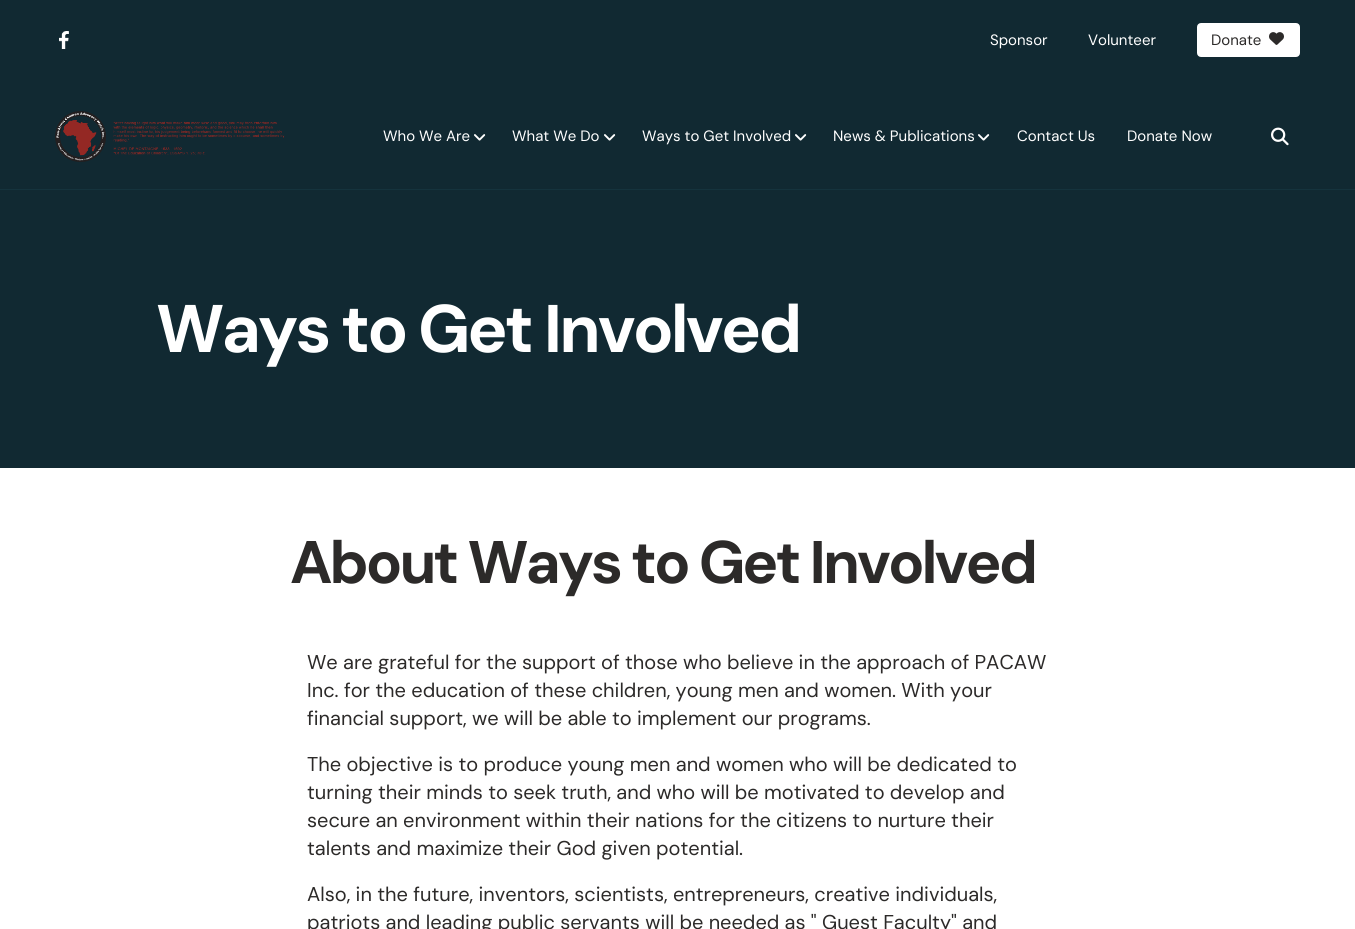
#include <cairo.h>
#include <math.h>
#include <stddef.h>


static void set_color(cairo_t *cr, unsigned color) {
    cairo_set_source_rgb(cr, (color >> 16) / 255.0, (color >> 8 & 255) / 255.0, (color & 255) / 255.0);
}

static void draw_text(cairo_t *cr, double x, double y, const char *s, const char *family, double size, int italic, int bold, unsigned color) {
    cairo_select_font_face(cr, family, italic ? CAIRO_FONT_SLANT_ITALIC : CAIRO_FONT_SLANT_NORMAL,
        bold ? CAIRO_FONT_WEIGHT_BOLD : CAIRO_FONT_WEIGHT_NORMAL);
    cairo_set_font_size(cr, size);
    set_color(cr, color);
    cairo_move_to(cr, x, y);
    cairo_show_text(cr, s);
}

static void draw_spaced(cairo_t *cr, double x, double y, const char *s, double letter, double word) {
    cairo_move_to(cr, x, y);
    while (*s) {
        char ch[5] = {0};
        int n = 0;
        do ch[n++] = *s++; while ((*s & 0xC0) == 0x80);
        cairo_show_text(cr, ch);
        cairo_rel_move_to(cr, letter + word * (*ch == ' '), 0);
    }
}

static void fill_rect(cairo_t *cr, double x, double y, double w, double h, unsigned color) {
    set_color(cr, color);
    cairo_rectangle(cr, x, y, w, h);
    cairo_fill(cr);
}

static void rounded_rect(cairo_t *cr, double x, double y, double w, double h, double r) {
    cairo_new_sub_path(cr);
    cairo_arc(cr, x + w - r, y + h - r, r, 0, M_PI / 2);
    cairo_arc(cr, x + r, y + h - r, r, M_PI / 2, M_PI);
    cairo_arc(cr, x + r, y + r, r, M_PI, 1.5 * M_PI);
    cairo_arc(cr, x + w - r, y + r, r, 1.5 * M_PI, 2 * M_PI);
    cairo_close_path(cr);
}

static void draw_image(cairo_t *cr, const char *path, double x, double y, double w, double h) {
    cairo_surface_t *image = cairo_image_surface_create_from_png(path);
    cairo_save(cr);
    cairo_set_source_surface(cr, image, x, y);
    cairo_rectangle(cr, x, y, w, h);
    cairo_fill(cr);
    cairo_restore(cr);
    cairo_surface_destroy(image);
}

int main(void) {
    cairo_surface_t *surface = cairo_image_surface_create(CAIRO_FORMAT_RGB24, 1355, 929);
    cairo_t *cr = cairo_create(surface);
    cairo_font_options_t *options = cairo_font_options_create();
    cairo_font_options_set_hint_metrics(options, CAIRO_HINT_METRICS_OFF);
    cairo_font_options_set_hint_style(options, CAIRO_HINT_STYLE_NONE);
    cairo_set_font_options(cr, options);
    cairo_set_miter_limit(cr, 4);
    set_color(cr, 0x112932);
    cairo_paint(cr);
    fill_rect(cr, 0, 189, 1355, 1, 0x15333D);
    draw_image(cr, "assets/img1.png", 59, 31, 10, 18);
    draw_text(cr, 990, 45, "Sponsor", "DM Sans", 15, 0, 0, 0xFFFFFF);
    draw_text(cr, 1088, 45, "Volunteer", "DM Sans", 15, 0, 0, 0xFFFFFF);
    rounded_rect(cr, 1198, 24, 101, 32, 3);
    cairo_fill_preserve(cr);
    cairo_stroke(cr);
    draw_text(cr, 1211, 45, "Donate", "DM Sans", 15, 0, 0, 0x2C2A29);
    draw_image(cr, "assets/img2.png", 1269, 32, 15, 13);
    draw_image(cr, "assets/img3.png", 55, 111, 230, 51);
    draw_text(cr, 383, 141, "Who We Are", "DM Sans", 15, 0, 0, 0xFFFFFF);
    draw_image(cr, "assets/img4.png", 474, 134, 12, 7);
    draw_text(cr, 512, 141, "What We Do", "DM Sans", 15, 0, 0, 0xFFFFFF);
    draw_image(cr, "assets/img4.png", 604, 134, 12, 7);
    draw_text(cr, 642, 141, "Ways to Get Involved", "DM Sans", 15, 0, 0, 0xFFFFFF);
    draw_image(cr, "assets/img4.png", 795, 134, 12, 7);
    draw_text(cr, 833, 141, "News & Publications", "DM Sans", 15, 0, 0, 0xFFFFFF);
    draw_image(cr, "assets/img4.png", 978, 134, 12, 7);
    draw_text(cr, 1017, 141, "Contact Us", "DM Sans", 15, 0, 0, 0xFFFFFF);
    draw_text(cr, 1127, 141, "Donate Now", "DM Sans", 15, 0, 0, 0xFFFFFF);
    draw_image(cr, "assets/img5.png", 1271, 127, 18, 19);
    cairo_select_font_face(cr, "DM Sans", CAIRO_FONT_SLANT_NORMAL, CAIRO_FONT_WEIGHT_BOLD);
    cairo_set_font_size(cr, 67.25);
    draw_spaced(cr, 156, 352, "Ways to Get Involved", -3, 0);
    fill_rect(cr, 0, 468, 1355, 461, 0xFFFFFF);
    cairo_set_font_size(cr, 60);
    set_color(cr, 0x2C2A29);
    draw_spaced(cr, 290, 583, "About Ways to Get Involved", -3, 0);
    draw_text(cr, 307, 669, "We are grateful for the support of those who believe in the approach of PACAW", "DM Sans", 20, 0, 0, 0x2C2A29);
    draw_text(cr, 307, 697, "Inc. for the education of these children, young men and women. With your", "DM Sans", 20, 0, 0, 0x2C2A29);
    draw_text(cr, 307, 725, "financial support, we will be able to implement our programs.", "DM Sans", 20, 0, 0, 0x2C2A29);
    draw_text(cr, 307, 771, "The objective is to produce young men and women who will be dedicated to", "DM Sans", 20, 0, 0, 0x2C2A29);
    draw_text(cr, 307, 799, "turning their minds to seek truth, and who will be motivated to develop and", "DM Sans", 20, 0, 0, 0x2C2A29);
    draw_text(cr, 307, 827, "secure an environment within their nations for the citizens to nurture their", "DM Sans", 20, 0, 0, 0x2C2A29);
    draw_text(cr, 307, 855, "talents and maximize their God given potential.", "DM Sans", 20, 0, 0, 0x2C2A29);
    draw_text(cr, 307, 901, "Also, in the future, inventors, scientists, entrepreneurs, creative individuals,", "DM Sans", 20, 0, 0, 0x2C2A29);
    draw_text(cr, 307, 929, "patriots and leading public servants will be needed as \" Guest Faculty\" and", "DM Sans", 20, 0, 0, 0x2C2A29);
    cairo_surface_write_to_png(surface, "output.png");
    cairo_font_options_destroy(options);
    cairo_destroy(cr);
    cairo_surface_destroy(surface);
    return 0;
}
